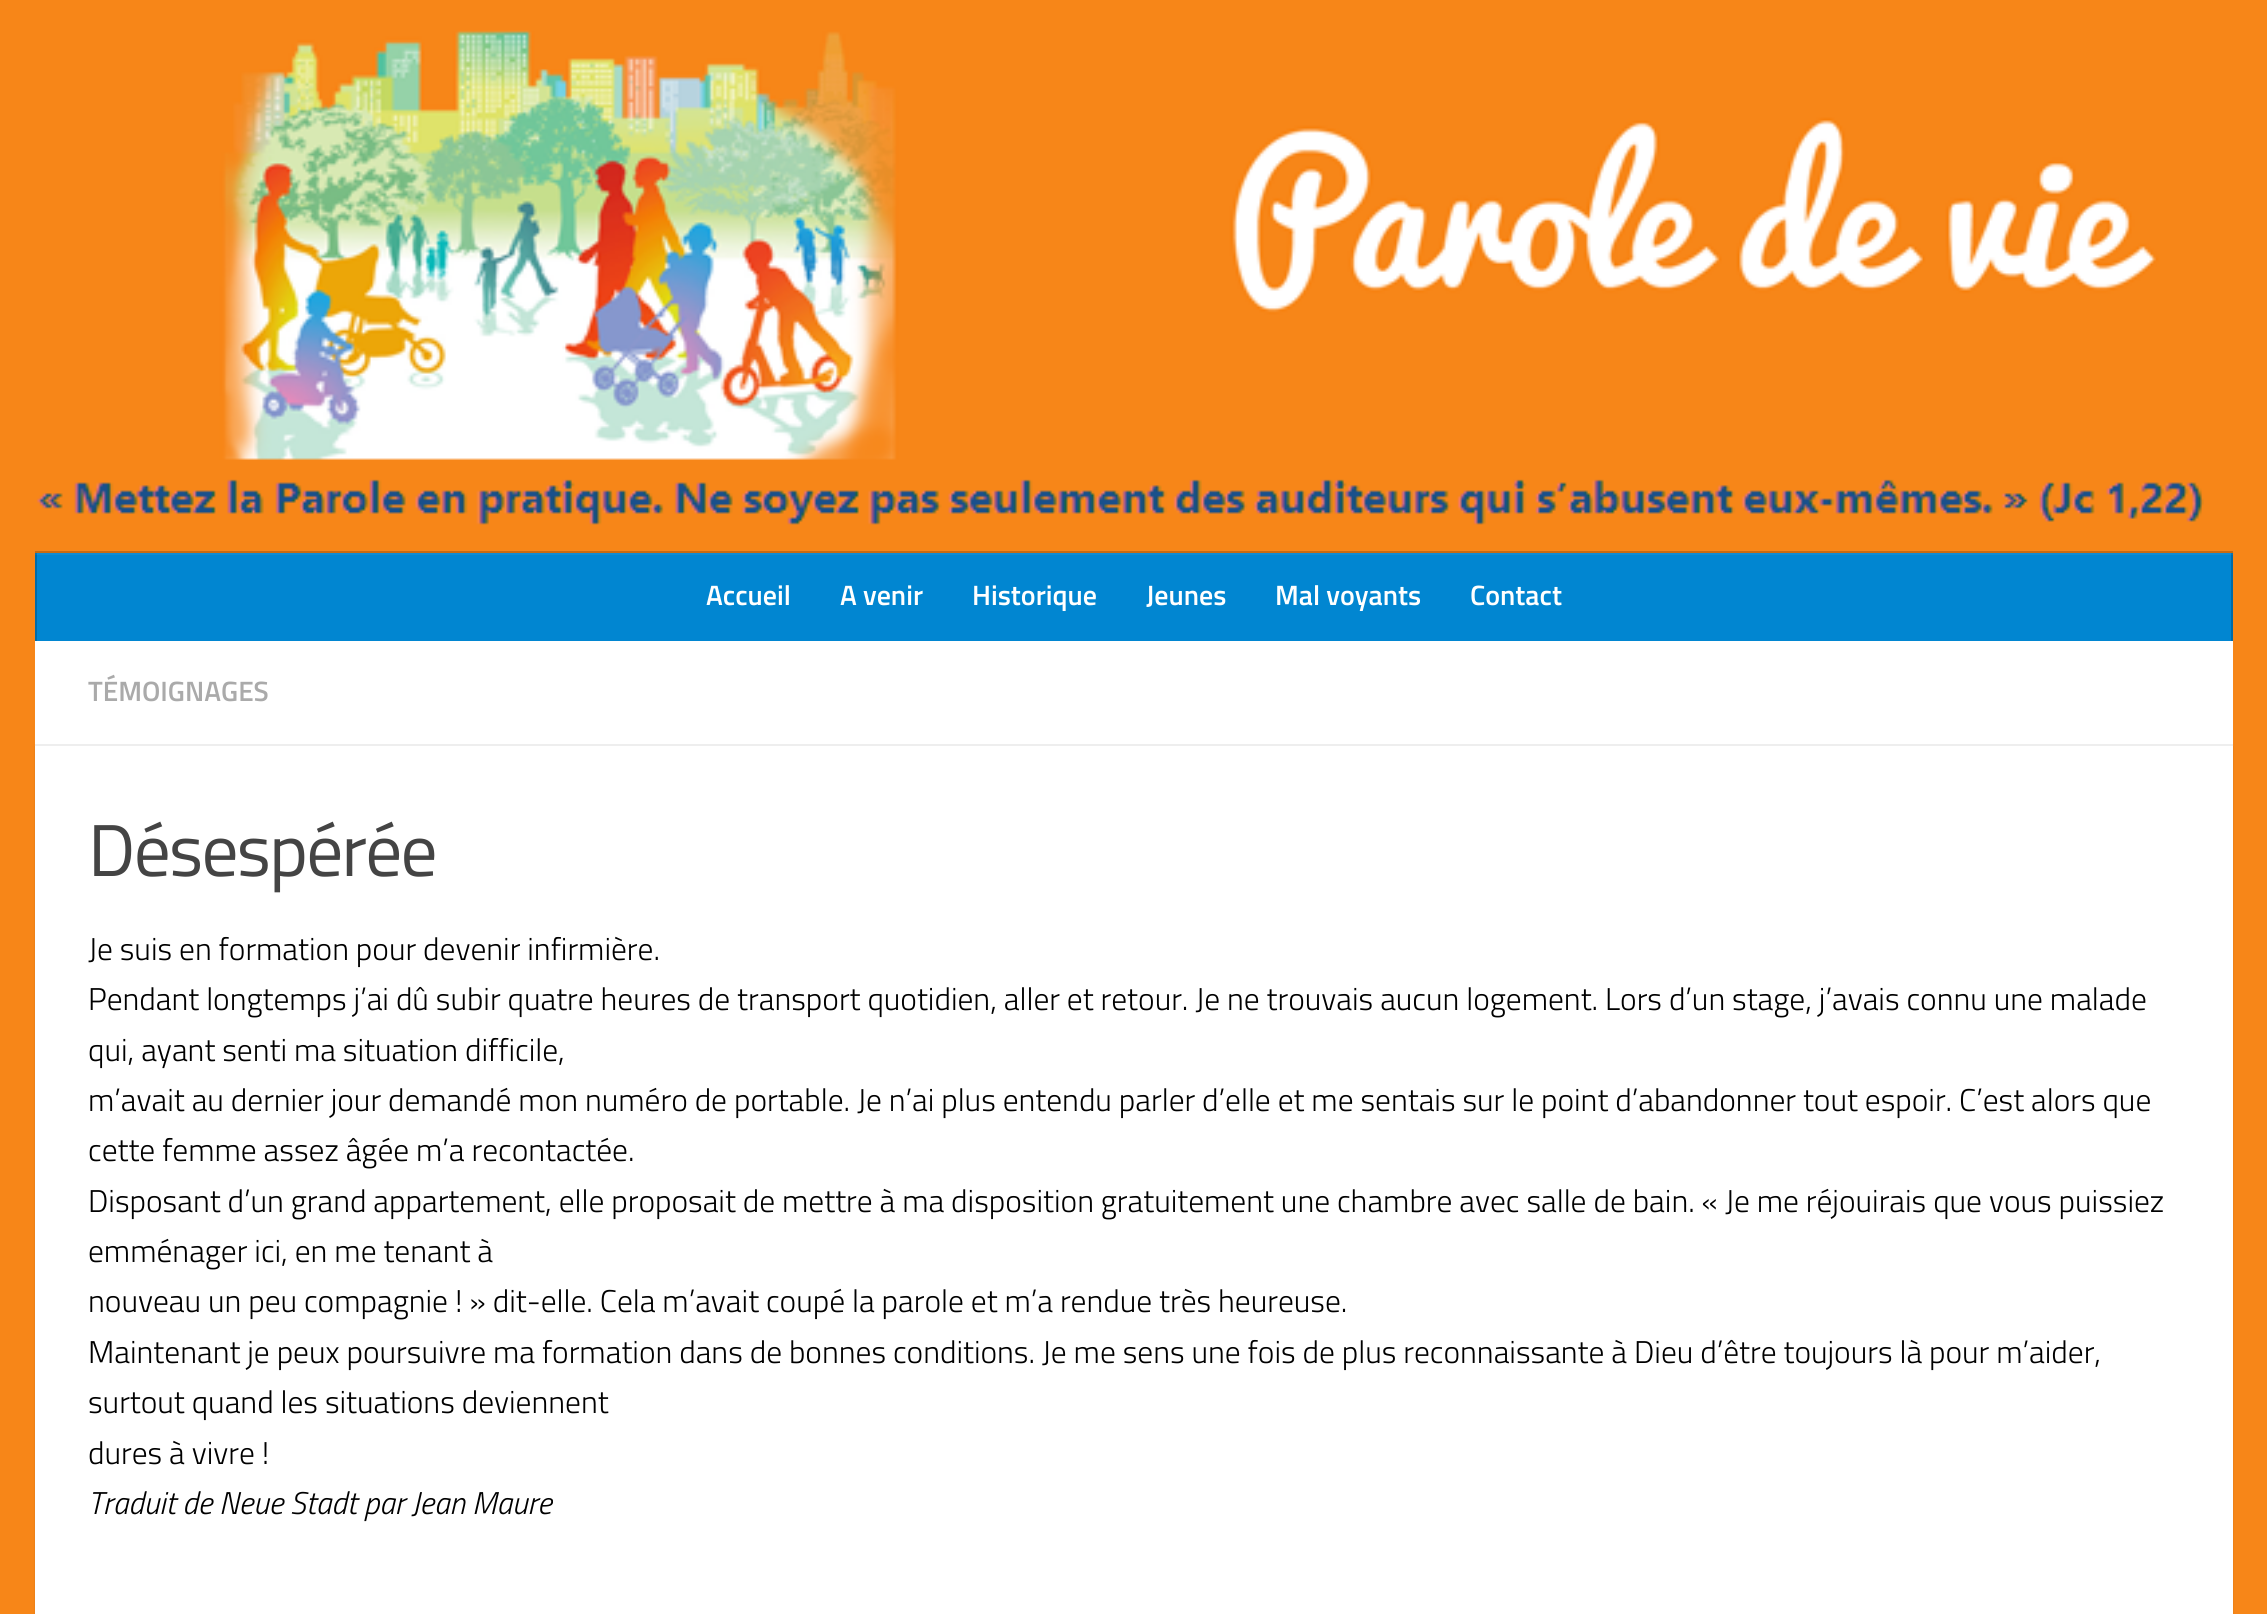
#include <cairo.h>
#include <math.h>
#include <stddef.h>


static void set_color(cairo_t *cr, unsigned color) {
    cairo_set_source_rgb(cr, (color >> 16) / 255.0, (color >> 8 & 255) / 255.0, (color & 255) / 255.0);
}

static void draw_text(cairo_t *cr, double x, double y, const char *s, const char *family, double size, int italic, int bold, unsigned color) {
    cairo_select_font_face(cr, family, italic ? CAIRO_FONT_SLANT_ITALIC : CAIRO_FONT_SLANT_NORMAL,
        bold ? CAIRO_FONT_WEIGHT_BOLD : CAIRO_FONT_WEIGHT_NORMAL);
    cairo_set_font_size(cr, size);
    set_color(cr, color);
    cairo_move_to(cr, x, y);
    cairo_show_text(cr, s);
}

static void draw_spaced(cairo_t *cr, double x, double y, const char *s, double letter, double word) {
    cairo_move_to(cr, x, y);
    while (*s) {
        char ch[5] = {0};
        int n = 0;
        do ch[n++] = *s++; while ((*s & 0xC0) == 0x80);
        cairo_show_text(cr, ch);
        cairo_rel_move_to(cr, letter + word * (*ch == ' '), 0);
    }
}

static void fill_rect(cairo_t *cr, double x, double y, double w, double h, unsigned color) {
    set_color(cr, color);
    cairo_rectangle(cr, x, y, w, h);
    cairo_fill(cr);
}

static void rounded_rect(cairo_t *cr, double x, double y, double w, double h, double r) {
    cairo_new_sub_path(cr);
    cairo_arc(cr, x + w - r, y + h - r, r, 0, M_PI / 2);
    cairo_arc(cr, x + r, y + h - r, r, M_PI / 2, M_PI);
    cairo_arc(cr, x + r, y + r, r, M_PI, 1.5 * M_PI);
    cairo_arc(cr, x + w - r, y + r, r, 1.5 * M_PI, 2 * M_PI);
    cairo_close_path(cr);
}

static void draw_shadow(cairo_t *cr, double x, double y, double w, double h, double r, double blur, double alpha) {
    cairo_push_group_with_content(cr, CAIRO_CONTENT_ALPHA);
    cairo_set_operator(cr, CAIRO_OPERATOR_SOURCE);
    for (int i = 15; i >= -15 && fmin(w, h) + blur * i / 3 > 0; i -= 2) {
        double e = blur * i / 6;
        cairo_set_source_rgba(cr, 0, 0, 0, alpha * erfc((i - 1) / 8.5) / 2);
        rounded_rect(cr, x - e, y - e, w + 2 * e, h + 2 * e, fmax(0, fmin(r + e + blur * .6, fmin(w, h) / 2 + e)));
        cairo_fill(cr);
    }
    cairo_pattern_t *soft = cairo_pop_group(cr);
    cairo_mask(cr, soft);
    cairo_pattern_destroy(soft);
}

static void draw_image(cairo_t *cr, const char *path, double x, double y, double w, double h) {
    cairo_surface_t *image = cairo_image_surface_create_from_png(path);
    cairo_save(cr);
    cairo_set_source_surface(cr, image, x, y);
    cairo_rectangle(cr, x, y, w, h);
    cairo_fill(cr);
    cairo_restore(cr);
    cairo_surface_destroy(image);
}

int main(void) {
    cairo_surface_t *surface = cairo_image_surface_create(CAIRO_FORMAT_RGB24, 2267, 1614);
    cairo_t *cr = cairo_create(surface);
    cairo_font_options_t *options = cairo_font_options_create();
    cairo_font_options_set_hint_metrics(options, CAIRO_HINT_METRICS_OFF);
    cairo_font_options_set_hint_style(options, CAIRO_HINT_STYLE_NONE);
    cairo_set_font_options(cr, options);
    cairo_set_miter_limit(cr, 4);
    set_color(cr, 0xF78618);
    cairo_paint(cr);
    set_color(cr, 0x000000);
    draw_shadow(cr, 35, 642, 2198, 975, 0, 1, 0.1);
    fill_rect(cr, 34, 641, 2200, 105, 0xF78618);
    draw_image(cr, "assets/img1.png", 37, 30, 2167, 495);
    fill_rect(cr, 35, 551, 2198, 2, 0xC66B13);
    fill_rect(cr, 37, 555, 2194, 86, 0x0186D1);
    fill_rect(cr, 35, 553, 2198, 2, 0x0E8CD3);
    fill_rect(cr, 2231, 553, 2, 88, 0x016BA7);
    fill_rect(cr, 2231, 553, 2, 2, 0x0E72AB);
    fill_rect(cr, 35, 553, 2, 88, 0x016BA7);
    fill_rect(cr, 35, 553, 2, 2, 0x0E72AB);
    draw_text(cr, 706, 605, "Accueil", "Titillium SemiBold", 28, 0, 0, 0xFFFFFF);
    draw_text(cr, 840, 605, "A venir", "Titillium SemiBold", 28, 0, 0, 0xFFFFFF);
    draw_text(cr, 972, 605, "Historique", "Titillium SemiBold", 28, 0, 0, 0xFFFFFF);
    draw_text(cr, 1146, 605, "Jeunes", "Titillium SemiBold", 28, 0, 0, 0xFFFFFF);
    draw_text(cr, 1275, 605, "Mal voyants", "Titillium SemiBold", 28, 0, 0, 0xFFFFFF);
    draw_text(cr, 1470, 605, "Contact", "Titillium SemiBold", 28, 0, 0, 0xFFFFFF);
    fill_rect(cr, 35, 641, 2198, 973, 0xFFFFFF);
    fill_rect(cr, 35, 744, 2198, 2, 0xEEEEEE);
    draw_text(cr, 88, 701, "TÉMOIGNAGES", "Titillium SemiBold", 28, 0, 0, 0xAAAAAA);
    cairo_select_font_face(cr, "Titillium", CAIRO_FONT_SLANT_NORMAL, CAIRO_FONT_WEIGHT_NORMAL);
    cairo_set_font_size(cr, 73.5);
    set_color(cr, 0x444444);
    draw_spaced(cr, 88, 876, "Désespérée", -1.75, 0);
    draw_text(cr, 88, 960, "Je suis en formation pour devenir infirmière.", "Titillium Light", 31.5, 0, 0, 0x000000);
    draw_text(cr, 88, 1010, "Pendant longtemps j’ai dû subir quatre heures de transport quotidien, aller et retour. Je ne trouvais aucun logement. Lors d’un stage, j’avais connu une malade", "Titillium Light", 31.5, 0, 0, 0x000000);
    draw_text(cr, 88, 1061, "qui, ayant senti ma situation difficile,", "Titillium Light", 31.5, 0, 0, 0x000000);
    draw_text(cr, 88, 1111, "m’avait au dernier jour demandé mon numéro de portable. Je n’ai plus entendu parler d’elle et me sentais sur le point d’abandonner tout espoir. C’est alors que", "Titillium Light", 31.5, 0, 0, 0x000000);
    draw_text(cr, 88, 1161, "cette femme assez âgée m’a recontactée.", "Titillium Light", 31.5, 0, 0, 0x000000);
    draw_text(cr, 88, 1212, "Disposant d’un grand appartement, elle proposait de mettre à ma disposition gratuitement une chambre avec salle de bain. « Je me réjouirais que vous puissiez", "Titillium Light", 31.5, 0, 0, 0x000000);
    draw_text(cr, 88, 1262, "emménager ici, en me tenant à", "Titillium Light", 31.5, 0, 0, 0x000000);
    draw_text(cr, 88, 1312, "nouveau un peu compagnie ! » dit-elle. Cela m’avait coupé la parole et m’a rendue très heureuse.", "Titillium Light", 31.5, 0, 0, 0x000000);
    draw_text(cr, 88, 1363, "Maintenant je peux poursuivre ma formation dans de bonnes conditions. Je me sens une fois de plus reconnaissante à Dieu d’être toujours là pour m’aider,", "Titillium Light", 31.5, 0, 0, 0x000000);
    draw_text(cr, 88, 1413, "surtout quand les situations deviennent", "Titillium Light", 31.5, 0, 0, 0x000000);
    draw_text(cr, 88, 1464, "dures à vivre !", "Titillium Light", 31.5, 0, 0, 0x000000);
    draw_text(cr, 88, 1514, "Traduit de Neue Stadt par Jean Maure", "Titillium Light", 31.5, 1, 0, 0x000000);
    cairo_surface_write_to_png(surface, "output.png");
    cairo_font_options_destroy(options);
    cairo_destroy(cr);
    cairo_surface_destroy(surface);
    return 0;
}
